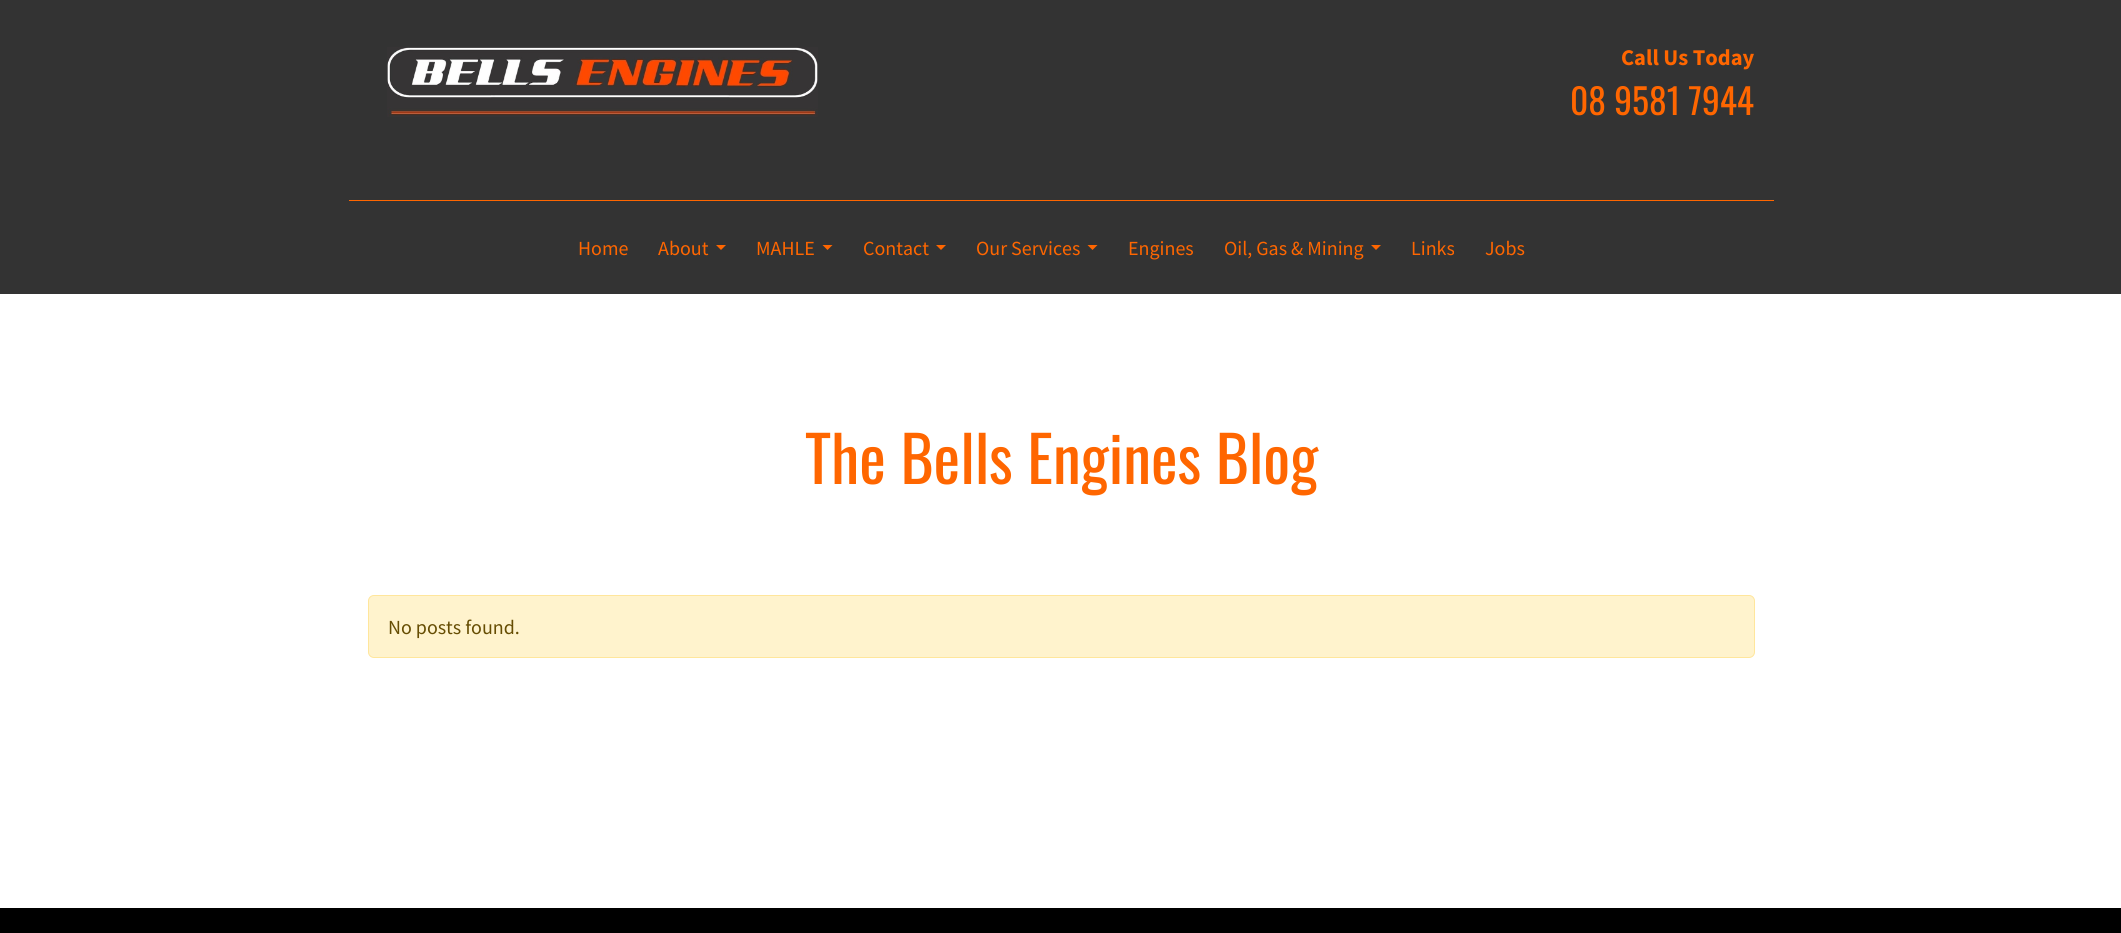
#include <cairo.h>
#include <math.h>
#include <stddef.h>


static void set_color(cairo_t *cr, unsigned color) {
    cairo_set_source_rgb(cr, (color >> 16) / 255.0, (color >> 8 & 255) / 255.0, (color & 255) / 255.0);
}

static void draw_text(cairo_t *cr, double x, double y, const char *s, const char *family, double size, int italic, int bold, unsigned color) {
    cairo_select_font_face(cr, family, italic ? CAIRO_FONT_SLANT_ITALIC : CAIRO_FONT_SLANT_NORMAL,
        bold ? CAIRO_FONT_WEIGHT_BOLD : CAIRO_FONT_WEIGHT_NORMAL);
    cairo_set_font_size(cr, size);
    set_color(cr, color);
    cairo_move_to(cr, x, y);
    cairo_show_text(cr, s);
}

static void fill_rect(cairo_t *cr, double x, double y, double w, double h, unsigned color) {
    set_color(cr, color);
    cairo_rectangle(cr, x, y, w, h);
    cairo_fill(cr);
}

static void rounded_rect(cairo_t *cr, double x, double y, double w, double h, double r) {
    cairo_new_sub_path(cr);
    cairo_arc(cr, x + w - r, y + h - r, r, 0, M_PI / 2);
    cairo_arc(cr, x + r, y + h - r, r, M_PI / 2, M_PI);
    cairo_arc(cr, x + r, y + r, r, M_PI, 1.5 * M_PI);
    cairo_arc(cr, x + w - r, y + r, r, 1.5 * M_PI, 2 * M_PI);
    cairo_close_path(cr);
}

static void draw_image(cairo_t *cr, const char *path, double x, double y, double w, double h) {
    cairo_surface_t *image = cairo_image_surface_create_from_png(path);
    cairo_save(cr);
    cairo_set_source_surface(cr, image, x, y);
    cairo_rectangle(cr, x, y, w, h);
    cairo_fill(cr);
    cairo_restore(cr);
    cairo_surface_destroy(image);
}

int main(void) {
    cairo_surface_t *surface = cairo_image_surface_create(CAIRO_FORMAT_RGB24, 2121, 933);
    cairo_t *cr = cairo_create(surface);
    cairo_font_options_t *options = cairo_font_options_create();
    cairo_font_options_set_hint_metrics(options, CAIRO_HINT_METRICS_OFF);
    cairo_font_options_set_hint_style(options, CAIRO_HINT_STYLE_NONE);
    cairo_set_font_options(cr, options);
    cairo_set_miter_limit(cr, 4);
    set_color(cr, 0xFFFFFF);
    cairo_paint(cr);
    fill_rect(cr, 0, 0, 2121, 294, 0x333333);
    draw_image(cr, "assets/img1.png", 387, 47, 431, 70);
    draw_text(cr, 1621, 65, "Call Us Today", "Source Sans Pro", 22.5, 0, 1, 0xFF6600);
    draw_text(cr, 1570, 115, "08 9581 7944", "Oswald", 35.5, 0, 0, 0xFF6600);
    fill_rect(cr, 349, 200, 1425, 1, 0xFF6600);
    draw_text(cr, 578, 255, "Home", "Source Sans Pro", 20, 0, 0, 0xFF6600);
    draw_text(cr, 658, 255, "About", "Source Sans Pro", 20, 0, 0, 0xFF6600);
    cairo_new_path(cr);
    cairo_move_to(cr, 716, 245);
    cairo_line_to(cr, 726, 245);
    cairo_line_to(cr, 721, 250);
    cairo_close_path(cr);
    cairo_fill(cr);
    draw_text(cr, 756, 255, "MAHLE", "Source Sans Pro", 20, 0, 0, 0xFF6600);
    cairo_new_path(cr);
    cairo_move_to(cr, 822.5, 245);
    cairo_line_to(cr, 832.5, 245);
    cairo_line_to(cr, 827.5, 250);
    cairo_close_path(cr);
    cairo_fill(cr);
    draw_text(cr, 863, 255, "Contact", "Source Sans Pro", 20, 0, 0, 0xFF6600);
    cairo_new_path(cr);
    cairo_move_to(cr, 936, 245);
    cairo_line_to(cr, 946, 245);
    cairo_line_to(cr, 941, 250);
    cairo_close_path(cr);
    cairo_fill(cr);
    draw_text(cr, 976, 255, "Our Services", "Source Sans Pro", 20, 0, 0, 0xFF6600);
    cairo_new_path(cr);
    cairo_move_to(cr, 1087.5, 245);
    cairo_line_to(cr, 1097.5, 245);
    cairo_line_to(cr, 1092.5, 250);
    cairo_close_path(cr);
    cairo_fill(cr);
    draw_text(cr, 1128, 255, "Engines", "Source Sans Pro", 20, 0, 0, 0xFF6600);
    draw_text(cr, 1224, 255, "Oil, Gas & Mining", "Source Sans Pro", 20, 0, 0, 0xFF6600);
    cairo_new_path(cr);
    cairo_move_to(cr, 1371, 245);
    cairo_line_to(cr, 1381, 245);
    cairo_line_to(cr, 1376, 250);
    cairo_close_path(cr);
    cairo_fill(cr);
    draw_text(cr, 1411, 255, "Links", "Source Sans Pro", 20, 0, 0, 0xFF6600);
    draw_text(cr, 1485, 255, "Jobs", "Source Sans Pro", 20, 0, 0, 0xFF6600);
    draw_text(cr, 805, 484, "The Bells Engines Blog", "Oswald", 63.25, 0, 0, 0xFF6600);
    set_color(cr, 0xFFF3CD);
    rounded_rect(cr, 368.5, 595.5, 1386, 62, 5.5);
    cairo_fill_preserve(cr);
    set_color(cr, 0xFFE69C);
    cairo_set_line_width(cr, 1);
    cairo_stroke(cr);
    draw_text(cr, 388, 634, "No posts found.", "Source Sans Pro", 20, 0, 0, 0x664D03);
    fill_rect(cr, 0, 908, 2121, 25, 0x000000);
    cairo_surface_write_to_png(surface, "output.png");
    cairo_font_options_destroy(options);
    cairo_destroy(cr);
    cairo_surface_destroy(surface);
    return 0;
}
